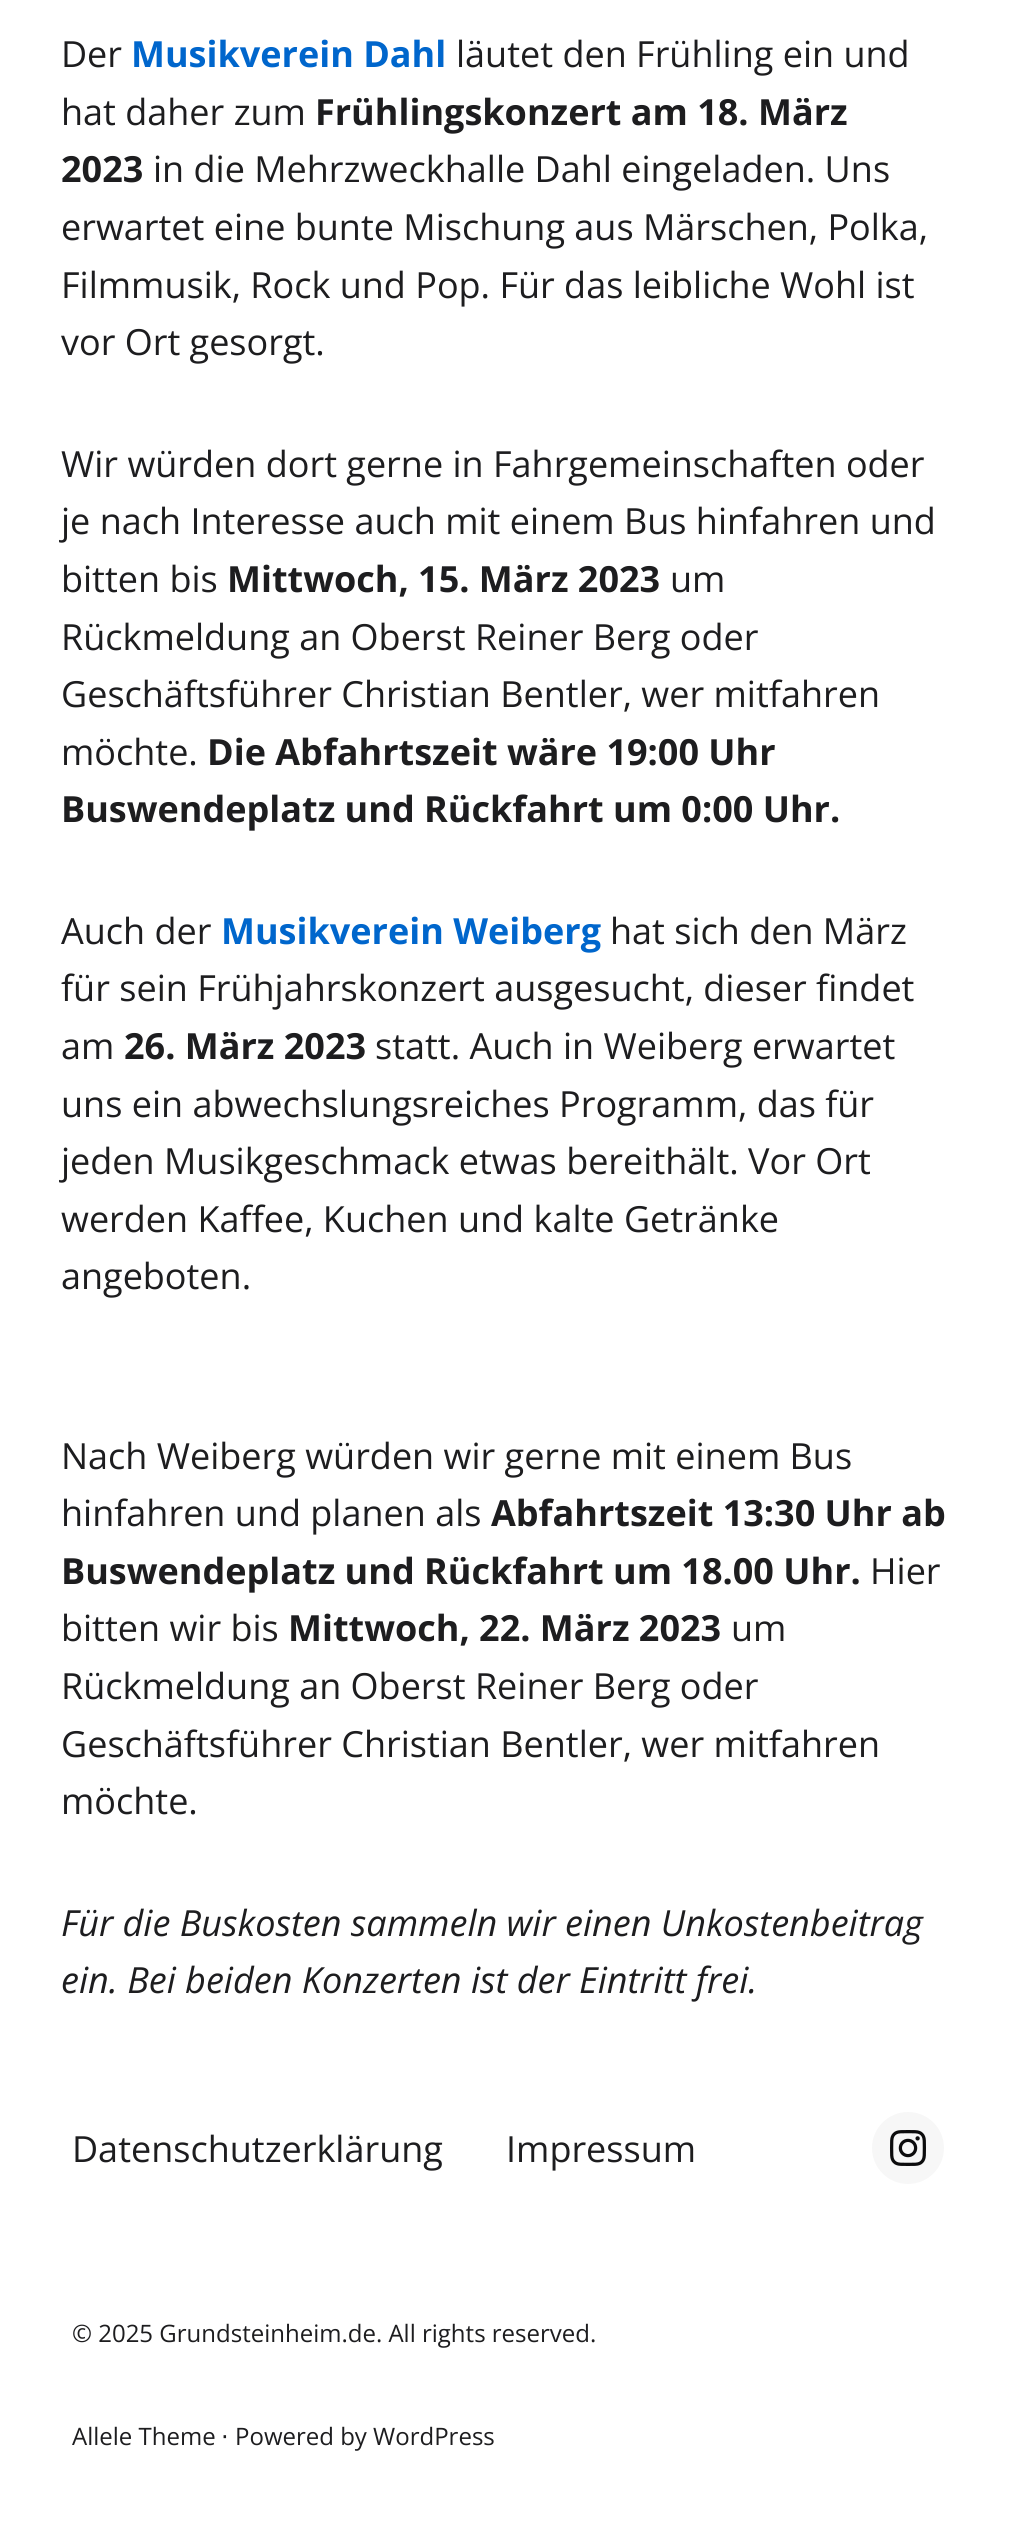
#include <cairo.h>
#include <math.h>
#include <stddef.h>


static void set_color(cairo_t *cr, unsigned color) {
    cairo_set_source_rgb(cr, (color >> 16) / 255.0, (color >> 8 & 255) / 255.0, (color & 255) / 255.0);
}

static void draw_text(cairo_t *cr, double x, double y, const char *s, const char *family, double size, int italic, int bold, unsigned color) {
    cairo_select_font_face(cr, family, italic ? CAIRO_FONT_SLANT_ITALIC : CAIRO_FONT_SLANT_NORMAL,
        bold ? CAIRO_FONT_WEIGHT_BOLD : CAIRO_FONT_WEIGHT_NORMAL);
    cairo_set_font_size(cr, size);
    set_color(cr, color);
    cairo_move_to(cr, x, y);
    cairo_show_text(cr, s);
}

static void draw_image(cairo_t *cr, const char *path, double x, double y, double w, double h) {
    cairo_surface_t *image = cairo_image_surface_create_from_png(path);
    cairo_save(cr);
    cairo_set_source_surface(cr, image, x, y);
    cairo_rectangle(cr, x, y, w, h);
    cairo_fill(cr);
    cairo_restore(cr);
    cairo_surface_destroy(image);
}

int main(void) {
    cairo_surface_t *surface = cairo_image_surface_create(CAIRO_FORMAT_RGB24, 1015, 2525);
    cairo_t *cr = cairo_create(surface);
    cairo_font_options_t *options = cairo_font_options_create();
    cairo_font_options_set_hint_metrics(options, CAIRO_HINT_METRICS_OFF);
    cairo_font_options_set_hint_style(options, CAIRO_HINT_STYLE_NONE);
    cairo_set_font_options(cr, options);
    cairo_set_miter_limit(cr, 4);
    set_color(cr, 0xFFFFFF);
    cairo_paint(cr);
    draw_text(cr, 61, 67, "Der", "Open Sans", 36, 0, 0, 0x1D1D1F);
    draw_text(cr, 131, 67, "Musikverein Dahl", "Open Sans", 36, 0, 1, 0x0066CC);
    draw_text(cr, 456, 67, "läutet den Frühling ein und", "Open Sans", 36, 0, 0, 0x1D1D1F);
    draw_text(cr, 61, 125, "hat daher zum", "Open Sans", 36, 0, 0, 0x1D1D1F);
    draw_text(cr, 315, 125, "Frühlingskonzert am 18. März", "Open Sans", 36, 0, 1, 0x1D1D1F);
    draw_text(cr, 61, 182, "2023", "Open Sans", 36, 0, 1, 0x1D1D1F);
    draw_text(cr, 153, 182, "in die Mehrzweckhalle Dahl eingeladen. Uns", "Open Sans", 36, 0, 0, 0x1D1D1F);
    draw_text(cr, 61, 240, "erwartet eine bunte Mischung aus Märschen, Polka,", "Open Sans", 36, 0, 0, 0x1D1D1F);
    draw_text(cr, 61, 298, "Filmmusik, Rock und Pop. Für das leibliche Wohl ist", "Open Sans", 36, 0, 0, 0x1D1D1F);
    draw_text(cr, 61, 355, "vor Ort gesorgt.", "Open Sans", 36, 0, 0, 0x1D1D1F);
    draw_text(cr, 61, 477, "Wir würden dort gerne in Fahrgemeinschaften oder", "Open Sans", 36, 0, 0, 0x1D1D1F);
    draw_text(cr, 61, 534, "je nach Interesse auch mit einem Bus hinfahren und", "Open Sans", 36, 0, 0, 0x1D1D1F);
    draw_text(cr, 61, 592, "bitten bis", "Open Sans", 36, 0, 0, 0x1D1D1F);
    draw_text(cr, 227, 592, "Mittwoch, 15. März 2023", "Open Sans", 36, 0, 1, 0x1D1D1F);
    draw_text(cr, 670, 592, "um", "Open Sans", 36, 0, 0, 0x1D1D1F);
    draw_text(cr, 61, 650, "Rückmeldung an Oberst Reiner Berg oder", "Open Sans", 36, 0, 0, 0x1D1D1F);
    draw_text(cr, 61, 707, "Geschäftsführer Christian Bentler, wer mitfahren", "Open Sans", 36, 0, 0, 0x1D1D1F);
    draw_text(cr, 61, 765, "möchte.", "Open Sans", 36, 0, 0, 0x1D1D1F);
    draw_text(cr, 207, 765, "Die Abfahrtszeit wäre 19:00 Uhr", "Open Sans", 36, 0, 1, 0x1D1D1F);
    draw_text(cr, 61, 822, "Buswendeplatz und Rückfahrt um 0:00 Uhr.", "Open Sans", 36, 0, 1, 0x1D1D1F);
    draw_text(cr, 61, 944, "Auch der", "Open Sans", 36, 0, 0, 0x1D1D1F);
    draw_text(cr, 221, 944, "Musikverein Weiberg", "Open Sans", 36, 0, 1, 0x0066CC);
    draw_text(cr, 610, 944, "hat sich den März", "Open Sans", 36, 0, 0, 0x1D1D1F);
    draw_text(cr, 61, 1001, "für sein Frühjahrskonzert ausgesucht, dieser findet", "Open Sans", 36, 0, 0, 0x1D1D1F);
    draw_text(cr, 61, 1059, "am", "Open Sans", 36, 0, 0, 0x1D1D1F);
    draw_text(cr, 124, 1059, "26. März 2023", "Open Sans", 36, 0, 1, 0x1D1D1F);
    draw_text(cr, 375, 1059, "statt. Auch in Weiberg erwartet", "Open Sans", 36, 0, 0, 0x1D1D1F);
    draw_text(cr, 61, 1117, "uns ein abwechslungsreiches Programm, das für", "Open Sans", 36, 0, 0, 0x1D1D1F);
    draw_text(cr, 61, 1174, "jeden Musikgeschmack etwas bereithält. Vor Ort", "Open Sans", 36, 0, 0, 0x1D1D1F);
    draw_text(cr, 61, 1232, "werden Kaffee, Kuchen und kalte Getränke", "Open Sans", 36, 0, 0, 0x1D1D1F);
    draw_text(cr, 61, 1289, "angeboten.", "Open Sans", 36, 0, 0, 0x1D1D1F);
    draw_text(cr, 61, 1469, "Nach Weiberg würden wir gerne mit einem Bus", "Open Sans", 36, 0, 0, 0x1D1D1F);
    draw_text(cr, 61, 1526, "hinfahren und planen als", "Open Sans", 36, 0, 0, 0x1D1D1F);
    draw_text(cr, 491, 1526, "Abfahrtszeit 13:30 Uhr ab", "Open Sans", 36, 0, 1, 0x1D1D1F);
    draw_text(cr, 61, 1584, "Buswendeplatz und Rückfahrt um 18.00 Uhr.", "Open Sans", 36, 0, 1, 0x1D1D1F);
    draw_text(cr, 870, 1584, "Hier", "Open Sans", 36, 0, 0, 0x1D1D1F);
    draw_text(cr, 61, 1641, "bitten wir bis", "Open Sans", 36, 0, 0, 0x1D1D1F);
    draw_text(cr, 288, 1641, "Mittwoch, 22. März 2023", "Open Sans", 36, 0, 1, 0x1D1D1F);
    draw_text(cr, 731, 1641, "um", "Open Sans", 36, 0, 0, 0x1D1D1F);
    draw_text(cr, 61, 1699, "Rückmeldung an Oberst Reiner Berg oder", "Open Sans", 36, 0, 0, 0x1D1D1F);
    draw_text(cr, 61, 1757, "Geschäftsführer Christian Bentler, wer mitfahren", "Open Sans", 36, 0, 0, 0x1D1D1F);
    draw_text(cr, 61, 1814, "möchte.", "Open Sans", 36, 0, 0, 0x1D1D1F);
    draw_text(cr, 61, 1936, "Für die Buskosten sammeln wir einen Unkostenbeitrag", "Open Sans", 36, 1, 0, 0x1D1D1F);
    draw_text(cr, 61, 1993, "ein. Bei beiden Konzerten ist der Eintritt frei.", "Open Sans", 36, 1, 0, 0x1D1D1F);
    draw_text(cr, 72, 2162, "Datenschutzerklärung", "Open Sans", 36, 0, 0, 0x1D1D1F);
    draw_text(cr, 506, 2162, "Impressum", "Open Sans", 36, 0, 0, 0x1D1D1F);
    set_color(cr, 0xF7F7F7);
    cairo_new_path(cr);
    cairo_arc(cr, 908, 2148, 36, 0, 2 * M_PI);
    cairo_fill(cr);
    draw_image(cr, "assets/img1.png", 890, 2130, 36, 36);
    draw_text(cr, 72, 2342, "© 2025 Grundsteinheim.de. All rights reserved.", "Open Sans", 24, 0, 0, 0x1D1D1F);
    draw_text(cr, 72, 2445, "Allele Theme", "Open Sans", 24, 0, 0, 0x1D1D1F);
    draw_text(cr, 221, 2445, "⋅", "DejaVu Sans", 24, 0, 0, 0x1D1D1F);
    draw_text(cr, 235, 2445, "Powered by WordPress", "Open Sans", 24, 0, 0, 0x1D1D1F);
    cairo_surface_write_to_png(surface, "output.png");
    cairo_font_options_destroy(options);
    cairo_destroy(cr);
    cairo_surface_destroy(surface);
    return 0;
}
